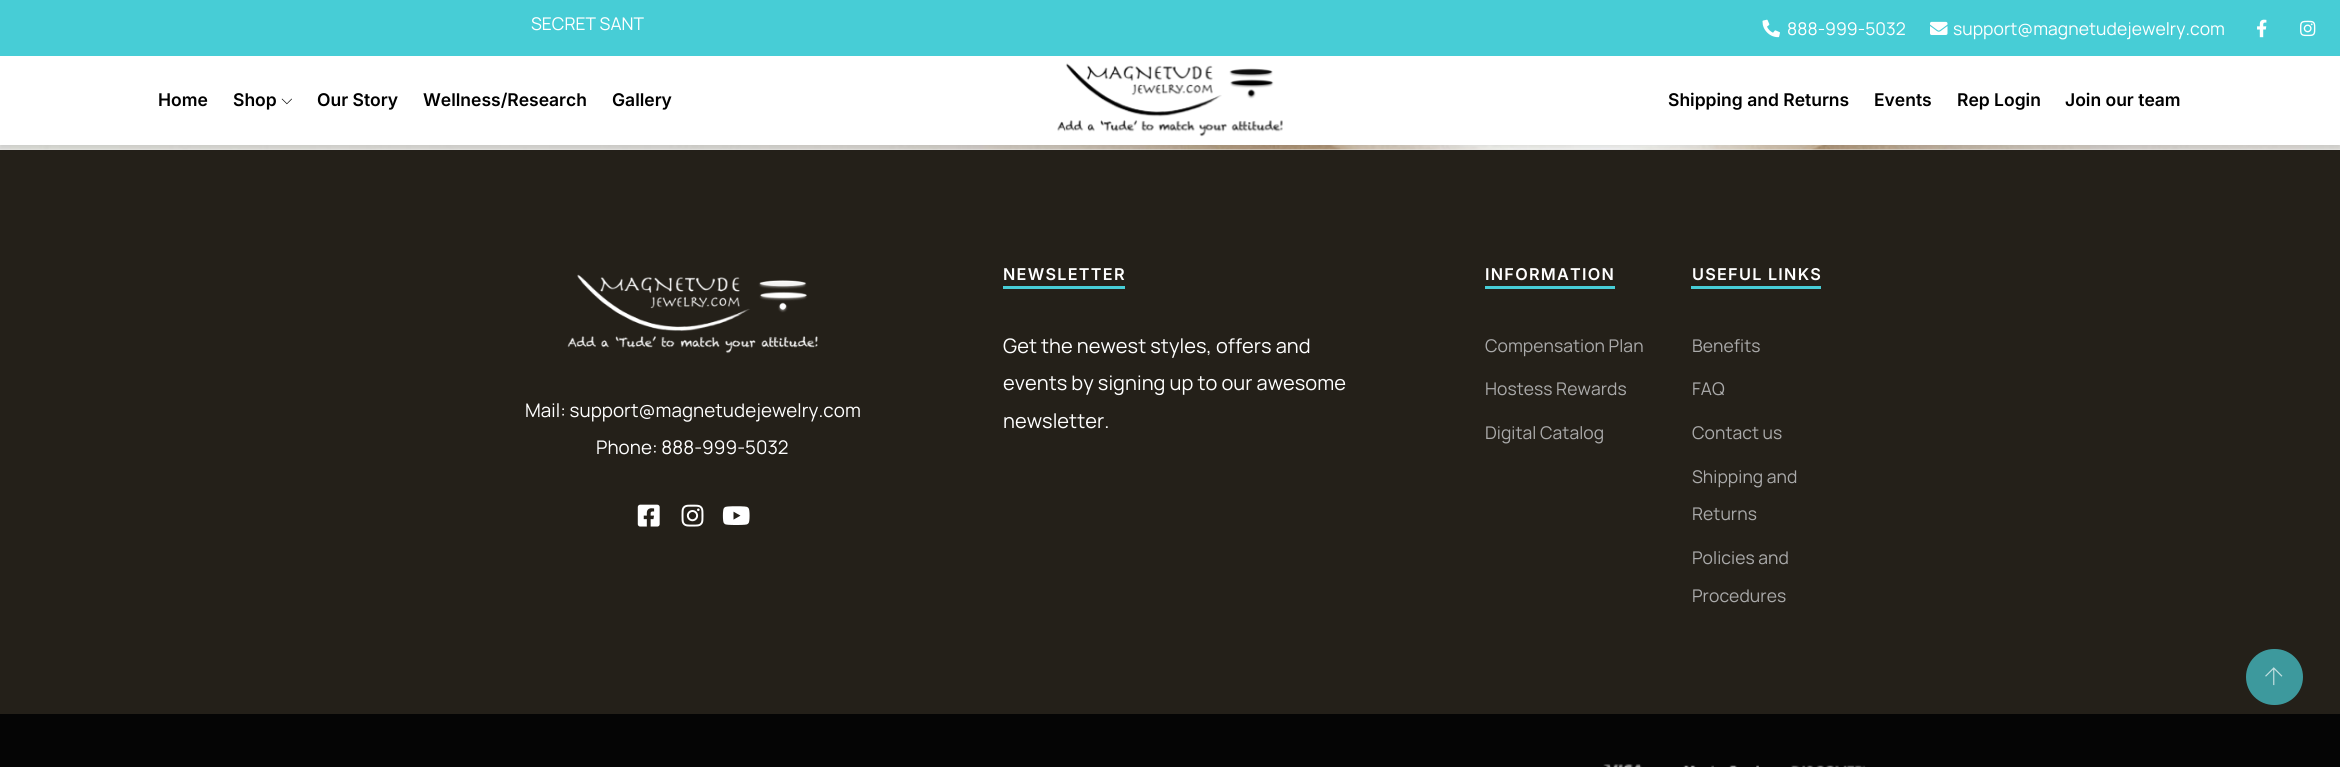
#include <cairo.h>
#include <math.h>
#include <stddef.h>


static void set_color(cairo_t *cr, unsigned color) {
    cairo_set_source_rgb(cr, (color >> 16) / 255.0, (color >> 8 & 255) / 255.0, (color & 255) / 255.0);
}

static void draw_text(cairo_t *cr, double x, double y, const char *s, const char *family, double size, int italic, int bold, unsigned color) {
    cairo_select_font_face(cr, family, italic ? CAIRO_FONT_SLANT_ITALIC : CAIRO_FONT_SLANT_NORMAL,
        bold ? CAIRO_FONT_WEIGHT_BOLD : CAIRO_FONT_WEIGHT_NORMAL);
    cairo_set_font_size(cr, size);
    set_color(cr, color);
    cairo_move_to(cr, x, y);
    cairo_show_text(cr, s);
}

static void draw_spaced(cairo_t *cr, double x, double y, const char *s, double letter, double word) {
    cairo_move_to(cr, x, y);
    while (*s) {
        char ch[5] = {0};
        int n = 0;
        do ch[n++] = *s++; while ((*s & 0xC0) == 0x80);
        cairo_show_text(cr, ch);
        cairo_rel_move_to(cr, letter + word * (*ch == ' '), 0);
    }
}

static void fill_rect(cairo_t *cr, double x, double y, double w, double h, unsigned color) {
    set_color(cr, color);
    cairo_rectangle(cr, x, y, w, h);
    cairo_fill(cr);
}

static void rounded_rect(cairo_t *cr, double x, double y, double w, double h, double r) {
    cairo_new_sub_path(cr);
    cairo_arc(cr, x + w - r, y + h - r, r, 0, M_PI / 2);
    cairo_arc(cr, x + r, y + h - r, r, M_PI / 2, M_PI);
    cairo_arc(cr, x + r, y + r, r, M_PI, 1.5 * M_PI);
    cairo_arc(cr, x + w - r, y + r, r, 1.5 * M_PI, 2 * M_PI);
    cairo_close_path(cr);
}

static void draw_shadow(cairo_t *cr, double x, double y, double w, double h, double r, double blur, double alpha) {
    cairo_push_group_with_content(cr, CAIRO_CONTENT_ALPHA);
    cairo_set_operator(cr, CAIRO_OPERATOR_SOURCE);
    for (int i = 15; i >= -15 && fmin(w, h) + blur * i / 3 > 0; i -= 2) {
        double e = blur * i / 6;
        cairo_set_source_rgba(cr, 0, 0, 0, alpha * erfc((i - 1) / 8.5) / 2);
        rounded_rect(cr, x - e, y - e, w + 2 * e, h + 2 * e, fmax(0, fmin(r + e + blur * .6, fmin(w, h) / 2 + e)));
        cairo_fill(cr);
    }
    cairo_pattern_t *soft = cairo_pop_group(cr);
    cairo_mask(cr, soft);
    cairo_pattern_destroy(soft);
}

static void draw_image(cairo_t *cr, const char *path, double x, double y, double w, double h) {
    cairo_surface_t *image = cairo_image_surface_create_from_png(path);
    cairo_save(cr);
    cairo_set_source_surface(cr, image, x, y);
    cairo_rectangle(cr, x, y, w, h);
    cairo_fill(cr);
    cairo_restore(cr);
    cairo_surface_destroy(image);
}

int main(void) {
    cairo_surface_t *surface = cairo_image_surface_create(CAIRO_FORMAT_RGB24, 2340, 767);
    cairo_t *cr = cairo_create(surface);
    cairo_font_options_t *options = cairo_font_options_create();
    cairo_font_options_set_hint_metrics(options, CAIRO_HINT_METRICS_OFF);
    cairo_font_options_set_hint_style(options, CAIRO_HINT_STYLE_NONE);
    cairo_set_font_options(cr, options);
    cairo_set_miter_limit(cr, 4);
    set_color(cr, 0xE9E9E7);
    cairo_paint(cr);
    draw_image(cr, "assets/img7.png", 0, 145, 2340, 5);
    fill_rect(cr, 0, 150, 2340, 564, 0x242019);
    set_color(cr, 0x000000);
    draw_shadow(cr, 0, 3, 2340, 145, 0, 3, 0.1);
    fill_rect(cr, 0, 56, 2340, 89, 0xFFFFFF);
    fill_rect(cr, 0, 0, 2340, 56, 0x47CDD6);
    cairo_select_font_face(cr, "Manrope", CAIRO_FONT_SLANT_NORMAL, CAIRO_FONT_WEIGHT_NORMAL);
    cairo_set_font_size(cr, 17.5);
    set_color(cr, 0xFFFFFF);
    draw_spaced(cr, 531, 30, "SECRET SANT", 0.05, 0);
    draw_image(cr, "assets/img1.png", 1762, 19, 18, 19);
    draw_spaced(cr, 1787, 35, "888-999-5032", 0.05, 0);
    draw_image(cr, "assets/img2.png", 1930, 21, 18, 14);
    draw_spaced(cr, 1953, 35, "support@magnetudejewelry.com", 0.05, 0);
    draw_image(cr, "assets/img3.png", 2257, 19, 10, 19);
    draw_image(cr, "assets/img4.png", 2300, 20, 16, 17);
    draw_text(cr, 158, 106, "Home", "Inter SemiBold", 17.5, 0, 0, 0x000000);
    draw_text(cr, 233, 106, "Shop", "Inter SemiBold", 17.5, 0, 0, 0x000000);
    draw_image(cr, "assets/img5.png", 281, 98, 11, 7);
    draw_text(cr, 317, 106, "Our Story", "Inter SemiBold", 17.5, 0, 0, 0x000000);
    draw_text(cr, 423, 106, "Wellness/Research", "Inter SemiBold", 17.5, 0, 0, 0x000000);
    draw_text(cr, 612, 106, "Gallery", "Inter SemiBold", 17.5, 0, 0, 0x000000);
    draw_image(cr, "assets/img6.png", 1057, 63, 226, 74);
    draw_text(cr, 1668, 106, "Shipping and Returns", "Inter SemiBold", 17.5, 0, 0, 0x000000);
    draw_text(cr, 1874, 106, "Events", "Inter SemiBold", 17.5, 0, 0, 0x000000);
    draw_text(cr, 1957, 106, "Rep Login", "Inter SemiBold", 17.5, 0, 0, 0x000000);
    draw_text(cr, 2065, 106, "Join our team", "Inter SemiBold", 17.5, 0, 0, 0x000000);
    draw_image(cr, "assets/img8.png", 567, 274, 251, 80);
    cairo_select_font_face(cr, "Manrope", CAIRO_FONT_SLANT_NORMAL, CAIRO_FONT_WEIGHT_NORMAL);
    cairo_set_font_size(cr, 18.75);
    set_color(cr, 0xFFFFFF);
    draw_spaced(cr, 525, 417, "Mail: support@magnetudejewelry.com", 0.05, 0);
    draw_spaced(cr, 596, 454, "Phone: 888-999-5032", 0.05, 0);
    draw_image(cr, "assets/img9.png", 637, 504, 23, 23);
    draw_image(cr, "assets/img10.png", 681, 504, 23, 23);
    draw_image(cr, "assets/img11.png", 722, 506, 28, 19);
    fill_rect(cr, 1003, 286, 122, 3, 0x47CDD6);
    cairo_select_font_face(cr, "Inter SemiBold", CAIRO_FONT_SLANT_NORMAL, CAIRO_FONT_WEIGHT_NORMAL);
    cairo_set_font_size(cr, 16.25);
    set_color(cr, 0xFFFFFF);
    draw_spaced(cr, 1003, 280, "NEWSLETTER", 1.25, 0);
    cairo_select_font_face(cr, "Manrope", CAIRO_FONT_SLANT_NORMAL, CAIRO_FONT_WEIGHT_NORMAL);
    cairo_set_font_size(cr, 20);
    draw_spaced(cr, 1003, 353, "Get the newest styles, offers and", 0.05, 0);
    draw_spaced(cr, 1003, 390, "events by signing up to our awesome", 0.05, 0);
    draw_spaced(cr, 1003, 428, "newsletter.", 0.05, 0);
    fill_rect(cr, 1485, 286, 130, 3, 0x47CDD6);
    cairo_select_font_face(cr, "Inter SemiBold", CAIRO_FONT_SLANT_NORMAL, CAIRO_FONT_WEIGHT_NORMAL);
    cairo_set_font_size(cr, 16.25);
    set_color(cr, 0xFFFFFF);
    draw_spaced(cr, 1485, 280, "INFORMATION", 1.25, 0);
    cairo_select_font_face(cr, "Manrope", CAIRO_FONT_SLANT_NORMAL, CAIRO_FONT_WEIGHT_NORMAL);
    cairo_set_font_size(cr, 17.5);
    set_color(cr, 0xAAAAAA);
    draw_spaced(cr, 1485, 352, "Compensation Plan", 0.05, 0);
    draw_spaced(cr, 1485, 395, "Hostess Rewards", 0.05, 0);
    draw_spaced(cr, 1485, 439, "Digital Catalog", 0.05, 0);
    fill_rect(cr, 1691, 286, 130, 3, 0x47CDD6);
    cairo_select_font_face(cr, "Inter SemiBold", CAIRO_FONT_SLANT_NORMAL, CAIRO_FONT_WEIGHT_NORMAL);
    cairo_set_font_size(cr, 16.25);
    set_color(cr, 0xFFFFFF);
    draw_spaced(cr, 1692, 280, "USEFUL LINKS", 1.25, 0);
    cairo_select_font_face(cr, "Manrope", CAIRO_FONT_SLANT_NORMAL, CAIRO_FONT_WEIGHT_NORMAL);
    cairo_set_font_size(cr, 17.5);
    set_color(cr, 0xAAAAAA);
    draw_spaced(cr, 1692, 352, "Benefits", 0.05, 0);
    draw_spaced(cr, 1692, 395, "FAQ", 0.05, 0);
    draw_spaced(cr, 1692, 439, "Contact us", 0.05, 0);
    draw_spaced(cr, 1692, 483, "Shipping and", 0.05, 0);
    draw_spaced(cr, 1692, 520, "Returns", 0.05, 0);
    draw_spaced(cr, 1692, 564, "Policies and", 0.05, 0);
    draw_spaced(cr, 1692, 602, "Procedures", 0.05, 0);
    fill_rect(cr, 0, 714, 2340, 53, 0x050505);
    draw_image(cr, "assets/img12.png", 1603, 764, 263, 3);
    set_color(cr, 0x3D999D);
    rounded_rect(cr, 2246, 649, 57, 56, 28);
    cairo_fill(cr);
    draw_image(cr, "assets/img13.png", 2265, 667, 18, 19);
    cairo_surface_write_to_png(surface, "output.png");
    cairo_font_options_destroy(options);
    cairo_destroy(cr);
    cairo_surface_destroy(surface);
    return 0;
}
